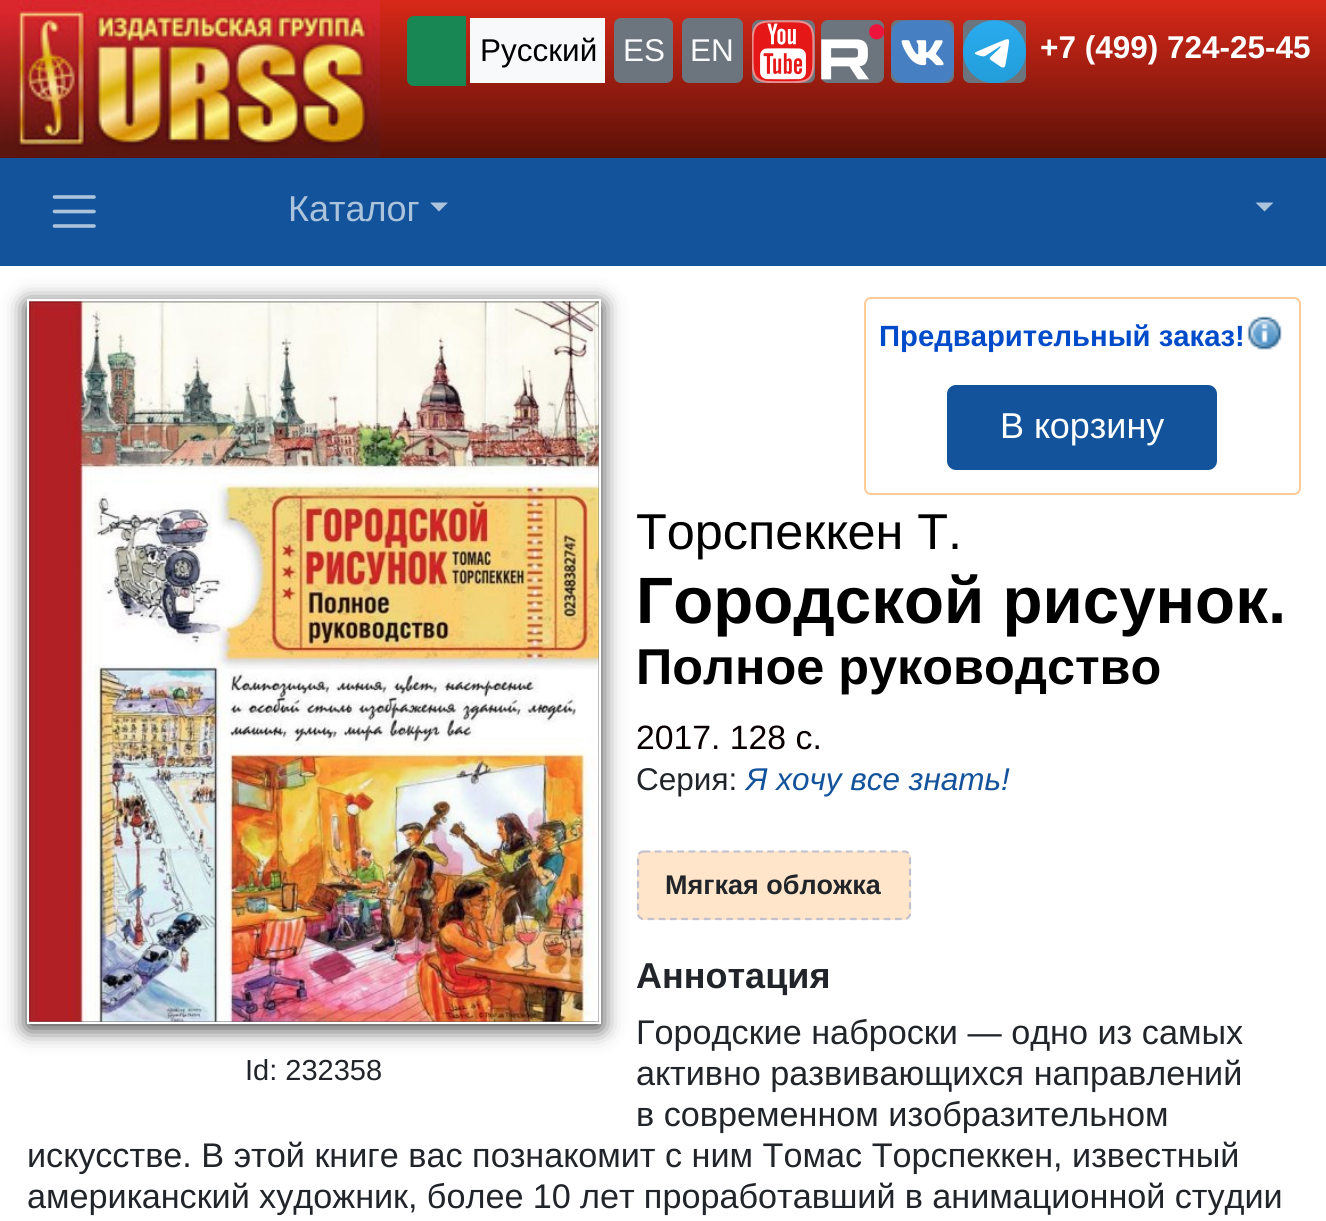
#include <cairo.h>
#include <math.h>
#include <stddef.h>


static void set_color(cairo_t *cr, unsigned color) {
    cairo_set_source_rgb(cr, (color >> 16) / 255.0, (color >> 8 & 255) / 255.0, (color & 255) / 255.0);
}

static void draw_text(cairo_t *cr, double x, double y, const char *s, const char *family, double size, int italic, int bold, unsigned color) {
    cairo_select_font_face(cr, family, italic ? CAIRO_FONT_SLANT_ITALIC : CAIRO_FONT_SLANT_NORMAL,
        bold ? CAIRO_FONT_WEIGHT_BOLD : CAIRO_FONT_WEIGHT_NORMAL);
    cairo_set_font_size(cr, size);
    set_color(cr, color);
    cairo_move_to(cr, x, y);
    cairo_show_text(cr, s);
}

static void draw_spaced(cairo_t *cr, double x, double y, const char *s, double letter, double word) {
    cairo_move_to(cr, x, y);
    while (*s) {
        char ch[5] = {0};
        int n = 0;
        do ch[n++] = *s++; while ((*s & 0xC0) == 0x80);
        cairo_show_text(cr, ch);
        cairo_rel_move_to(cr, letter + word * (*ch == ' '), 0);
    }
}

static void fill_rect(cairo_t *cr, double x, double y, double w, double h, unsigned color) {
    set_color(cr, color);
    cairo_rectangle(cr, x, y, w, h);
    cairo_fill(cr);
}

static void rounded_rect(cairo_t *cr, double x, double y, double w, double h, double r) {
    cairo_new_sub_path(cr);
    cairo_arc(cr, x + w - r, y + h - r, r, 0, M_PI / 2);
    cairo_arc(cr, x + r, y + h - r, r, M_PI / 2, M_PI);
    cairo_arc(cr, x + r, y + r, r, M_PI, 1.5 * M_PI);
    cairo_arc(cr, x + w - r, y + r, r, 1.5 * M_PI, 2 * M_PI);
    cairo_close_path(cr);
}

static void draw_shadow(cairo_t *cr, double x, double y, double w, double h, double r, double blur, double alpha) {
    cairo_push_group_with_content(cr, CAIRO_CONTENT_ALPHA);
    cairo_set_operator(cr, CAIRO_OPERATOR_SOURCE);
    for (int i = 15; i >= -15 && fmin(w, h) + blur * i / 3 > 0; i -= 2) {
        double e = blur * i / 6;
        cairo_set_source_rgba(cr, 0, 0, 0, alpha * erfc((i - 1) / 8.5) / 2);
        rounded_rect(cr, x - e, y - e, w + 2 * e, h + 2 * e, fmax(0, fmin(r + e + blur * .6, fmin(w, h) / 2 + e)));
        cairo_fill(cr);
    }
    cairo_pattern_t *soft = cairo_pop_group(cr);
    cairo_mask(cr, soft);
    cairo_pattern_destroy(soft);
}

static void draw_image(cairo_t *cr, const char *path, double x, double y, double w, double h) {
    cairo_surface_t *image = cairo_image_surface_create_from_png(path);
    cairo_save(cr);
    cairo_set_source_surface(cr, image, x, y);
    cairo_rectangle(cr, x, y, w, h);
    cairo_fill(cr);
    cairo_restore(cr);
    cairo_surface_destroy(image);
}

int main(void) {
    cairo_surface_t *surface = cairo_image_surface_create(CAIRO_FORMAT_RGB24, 1326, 1221);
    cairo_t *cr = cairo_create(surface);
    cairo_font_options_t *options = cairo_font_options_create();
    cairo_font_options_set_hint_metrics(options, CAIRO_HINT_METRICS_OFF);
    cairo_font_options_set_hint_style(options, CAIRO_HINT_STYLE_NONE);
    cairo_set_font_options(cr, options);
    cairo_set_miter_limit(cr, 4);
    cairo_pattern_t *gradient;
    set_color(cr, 0xFFFFFF);
    cairo_paint(cr);
    gradient = cairo_pattern_create_linear(190, 0, 190, 158);
    cairo_pattern_add_color_stop_rgba(gradient, 0, 0.847, 0.157, 0.094, 1);
    cairo_pattern_add_color_stop_rgba(gradient, 1, 0.357, 0.067, 0.031, 1);
    cairo_set_source(cr, gradient);
    cairo_pattern_destroy(gradient);
    cairo_rectangle(cr, 0, 157, 380, 1);
    cairo_fill(cr);
    draw_image(cr, "assets/img1.png", 0, 0, 380, 158);
    gradient = cairo_pattern_create_linear(854, 0, 854, 158);
    cairo_pattern_add_color_stop_rgba(gradient, 0, 0.847, 0.157, 0.094, 1);
    cairo_pattern_add_color_stop_rgba(gradient, 1, 0.357, 0.067, 0.031, 1);
    cairo_set_source(cr, gradient);
    cairo_pattern_destroy(gradient);
    cairo_rectangle(cr, 380, 0, 946, 158);
    cairo_fill(cr);
    set_color(cr, 0x198754);
    cairo_new_path(cr);
    cairo_move_to(cr, 414, 17);
    cairo_line_to(cr, 465, 17);
    cairo_line_to(cr, 465, 85);
    cairo_line_to(cr, 414, 85);
    cairo_curve_to(cr, 410.5, 85, 408, 82.5, 408, 79);
    cairo_line_to(cr, 408, 23);
    cairo_curve_to(cr, 408, 19.5, 410.5, 17, 414, 17);
    cairo_close_path(cr);
    cairo_fill_preserve(cr);
    cairo_stroke(cr);
    fill_rect(cr, 470, 18, 135, 65, 0xF8F9FA);
    draw_text(cr, 480, 61, "Русский", "Liberation Sans", 31.5, 0, 0, 0x000000);
    set_color(cr, 0x6C757D);
    rounded_rect(cr, 614, 18, 59, 65, 7);
    cairo_fill(cr);
    draw_text(cr, 623, 61, "ES", "Liberation Sans", 31.5, 0, 0, 0xF8F9FA);
    set_color(cr, 0x6C757D);
    rounded_rect(cr, 682, 18, 61, 65, 7);
    cairo_fill(cr);
    draw_text(cr, 690, 61, "EN", "Liberation Sans", 31.5, 0, 0, 0xF8F9FA);
    set_color(cr, 0x6C757D);
    rounded_rect(cr, 752, 20, 63, 63, 7);
    cairo_fill(cr);
    draw_image(cr, "assets/img2.png", 752, 20, 63, 63);
    rounded_rect(cr, 821, 20, 63, 63, 7);
    cairo_fill(cr);
    draw_image(cr, "assets/img3.png", 821, 24, 63, 56);
    rounded_rect(cr, 891, 20, 63, 63, 7);
    cairo_fill(cr);
    draw_image(cr, "assets/img4.png", 891, 20, 63, 63);
    rounded_rect(cr, 963, 20, 63, 63, 7);
    cairo_fill(cr);
    draw_image(cr, "assets/img5.png", 963, 20, 63, 63);
    draw_text(cr, 1040, 58, "+7 (499) 724-25-45", "Liberation Sans", 31.5, 0, 1, 0xFFFFFF);
    fill_rect(cr, 0, 158, 1326, 108, 0x13539B);
    cairo_new_path(cr);
    cairo_move_to(cr, 54.5, 197);
    cairo_line_to(cr, 94, 197);
    cairo_move_to(cr, 54.5, 211.5);
    cairo_line_to(cr, 94, 211.5);
    cairo_move_to(cr, 54.5, 226);
    cairo_line_to(cr, 94, 226);
    set_color(cr, 0xACC3DC);
    cairo_set_line_width(cr, 3.6);
    cairo_set_line_cap(cr, CAIRO_LINE_CAP_ROUND);
    cairo_stroke(cr);
    draw_text(cr, 288, 221, "Каталог", "Liberation Sans", 36, 0, 0, 0xACC3DC);
    cairo_new_path(cr);
    cairo_move_to(cr, 430, 202.5);
    cairo_line_to(cr, 448, 202.5);
    cairo_line_to(cr, 439, 211.5);
    cairo_close_path(cr);
    cairo_fill(cr);
    cairo_new_path(cr);
    cairo_move_to(cr, 1255.5, 202.5);
    cairo_line_to(cr, 1273.5, 202.5);
    cairo_line_to(cr, 1264.5, 211.5);
    cairo_close_path(cr);
    cairo_fill(cr);
    rounded_rect(cr, 865, 298, 435, 196, 6);
    set_color(cr, 0xFFCC99);
    cairo_set_line_width(cr, 2);
    cairo_set_line_cap(cr, CAIRO_LINE_CAP_BUTT);
    cairo_stroke(cr);
    draw_text(cr, 879, 346, "Предварительный заказ!", "Liberation Sans", 29.25, 0, 1, 0x004BCA);
    draw_image(cr, "assets/img6.png", 1247, 316, 35, 34);
    set_color(cr, 0x13539B);
    rounded_rect(cr, 948, 386, 268, 83, 8);
    cairo_fill_preserve(cr);
    cairo_stroke(cr);
    draw_text(cr, 1000, 438, "В корзину", "Liberation Sans", 36, 0, 0, 0xFFFFFF);
    draw_text(cr, 636, 549, "Торспеккен Т.", "Liberation Sans", 50.4, 0, 0, 0x000000);
    draw_text(cr, 636, 623, "Городской рисунок.", "Liberation Sans", 65.5, 0, 1, 0x000000);
    draw_text(cr, 636, 684, "Полное руководство", "Liberation Sans", 50.4, 0, 1, 0x000000);
    draw_text(cr, 636, 749, "2017. 128 с.", "Liberation Sans", 33.75, 0, 0, 0x080000);
    draw_text(cr, 636, 790, "Серия:", "Liberation Sans", 31.5, 0, 0, 0x212529);
    draw_text(cr, 746, 790, "Я хочу все знать!", "Liberation Sans", 31.5, 1, 0, 0x13539B);
    set_color(cr, 0xFFE5CA);
    rounded_rect(cr, 637, 851, 274, 69, 7);
    cairo_fill(cr);
    cairo_new_path(cr);
    cairo_move_to(cr, 643.5, 851.5);
    cairo_line_to(cr, 904.5, 851.5);
    cairo_curve_to(cr, 907.5, 851.5, 910, 854, 910, 857);
    cairo_line_to(cr, 910, 913.5);
    cairo_curve_to(cr, 910, 916.5, 907.5, 919, 904.5, 919);
    cairo_line_to(cr, 643.5, 919);
    cairo_curve_to(cr, 640.5, 919, 638, 916.5, 638, 913.5);
    cairo_line_to(cr, 638, 857);
    cairo_curve_to(cr, 638, 854, 640.5, 851.5, 643.5, 851.5);
    cairo_close_path(cr);
    set_color(cr, 0xC4C1CF);
    cairo_set_line_width(cr, 2.2);
    cairo_set_dash(cr, (double[]){6.75, 4.5}, 2, 0);
    cairo_stroke(cr);
    draw_text(cr, 665, 894, "Мягкая обложка", "Liberation Sans", 27, 0, 1, 0x212529);
    set_color(cr, 0x000000);
    draw_shadow(cr, 27, 304, 574, 724, 0, 11, 0.8);
    cairo_rectangle(cr, 28, 300, 572, 723);
    set_color(cr, 0xFFFFFF);
    cairo_set_line_width(cr, 2);
    cairo_set_dash(cr, NULL, 0, 0);
    cairo_stroke(cr);
    draw_image(cr, "assets/img7.png", 29, 301, 570, 721);
    draw_text(cr, 245, 1080, "Id: 232358", "Liberation Sans", 29, 0, 0, 0x212529);
    draw_text(cr, 636, 988, "Аннотация", "Liberation Sans", 36, 0, 1, 0x212529);
    draw_text(cr, 636, 1044, "Городские наброски — одно из самых", "Liberation Sans", 34.2, 0, 0, 0x212529);
    draw_text(cr, 636, 1085, "активно развивающихся направлений", "Liberation Sans", 34.2, 0, 0, 0x212529);
    draw_text(cr, 636, 1126, "в современном изобразительном", "Liberation Sans", 34.2, 0, 0, 0x212529);
    draw_text(cr, 27, 1167, "искусстве. В этой книге вас познакомит с ним Томас Торспеккен, известный", "Liberation Sans", 34.2, 0, 0, 0x212529);
    draw_spaced(cr, 27, 1208, "американский художник, более 10 лет проработавший в анимационной студии", 0, -0.25);
    cairo_surface_write_to_png(surface, "output.png");
    cairo_font_options_destroy(options);
    cairo_destroy(cr);
    cairo_surface_destroy(surface);
    return 0;
}
